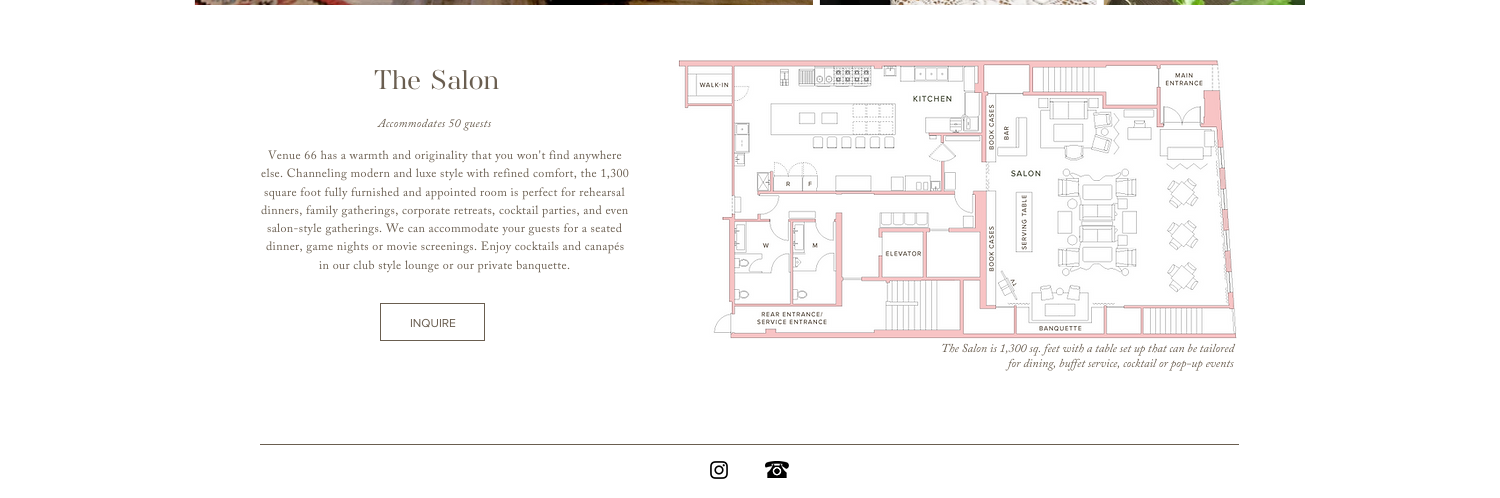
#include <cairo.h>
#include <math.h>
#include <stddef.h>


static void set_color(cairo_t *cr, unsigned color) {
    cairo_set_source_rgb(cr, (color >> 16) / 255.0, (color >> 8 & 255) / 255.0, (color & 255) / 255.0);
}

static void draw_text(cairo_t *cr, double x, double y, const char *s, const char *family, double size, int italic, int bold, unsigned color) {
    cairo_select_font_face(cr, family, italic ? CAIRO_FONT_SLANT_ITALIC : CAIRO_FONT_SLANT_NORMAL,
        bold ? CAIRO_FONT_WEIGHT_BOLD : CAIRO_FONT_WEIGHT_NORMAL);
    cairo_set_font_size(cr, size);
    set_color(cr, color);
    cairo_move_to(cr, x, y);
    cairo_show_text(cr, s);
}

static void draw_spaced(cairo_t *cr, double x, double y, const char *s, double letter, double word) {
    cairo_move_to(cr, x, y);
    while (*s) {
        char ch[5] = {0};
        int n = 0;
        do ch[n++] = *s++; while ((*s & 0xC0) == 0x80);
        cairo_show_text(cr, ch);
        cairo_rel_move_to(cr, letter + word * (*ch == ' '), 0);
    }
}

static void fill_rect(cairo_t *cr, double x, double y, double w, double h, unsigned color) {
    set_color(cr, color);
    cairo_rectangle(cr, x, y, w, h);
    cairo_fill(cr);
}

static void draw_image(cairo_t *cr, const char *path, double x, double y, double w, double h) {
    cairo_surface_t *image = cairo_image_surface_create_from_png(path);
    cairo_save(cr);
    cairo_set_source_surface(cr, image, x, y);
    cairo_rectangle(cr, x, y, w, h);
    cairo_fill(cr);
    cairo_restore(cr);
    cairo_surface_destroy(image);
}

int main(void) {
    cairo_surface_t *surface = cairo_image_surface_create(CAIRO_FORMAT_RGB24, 1500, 498);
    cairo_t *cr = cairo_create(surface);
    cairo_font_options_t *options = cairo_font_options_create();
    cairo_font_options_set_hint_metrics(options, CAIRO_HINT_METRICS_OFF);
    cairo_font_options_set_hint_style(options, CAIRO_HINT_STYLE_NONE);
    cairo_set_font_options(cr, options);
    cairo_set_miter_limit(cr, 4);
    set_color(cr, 0xFFFFFF);
    cairo_paint(cr);
    fill_rect(cr, 194, 0, 1, 5, 0xE8E6E6);
    draw_image(cr, "assets/img1.png", 195, 0, 618, 5);
    fill_rect(cr, 819, 0, 1, 5, 0xE8E6E6);
    draw_image(cr, "assets/img2.png", 820, 0, 277, 5);
    fill_rect(cr, 1103, 0, 1, 5, 0xE8E6E6);
    draw_image(cr, "assets/img3.png", 1104, 0, 201, 5);
    draw_text(cr, 374, 89, "The Salon", "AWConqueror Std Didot", 28, 0, 0, 0x6A5E50);
    draw_image(cr, "assets/img4.png", 678, 60, 559, 279);
    cairo_select_font_face(cr, "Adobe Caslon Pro", CAIRO_FONT_SLANT_ITALIC, CAIRO_FONT_WEIGHT_NORMAL);
    cairo_set_font_size(cr, 12);
    draw_spaced(cr, 378, 127, "Accommodates 50 guests", 0.25, 0);
    cairo_select_font_face(cr, "Adobe Caslon Pro", CAIRO_FONT_SLANT_NORMAL, CAIRO_FONT_WEIGHT_NORMAL);
    draw_spaced(cr, 268, 159, "Venue 66 has a warmth and originality that you won't find anywhere", 0.35, 0);
    draw_spaced(cr, 261, 177, "else. Channeling modern and luxe style with refined comfort, the 1,300", 0.35, 0);
    draw_spaced(cr, 264, 196, "square foot fully furnished and appointed room is perfect for rehearsal", 0.35, 0);
    draw_spaced(cr, 261, 214, "dinners, family gatherings, corporate retreats, cocktail parties, and even", 0.35, 0);
    draw_spaced(cr, 267, 232, "salon-style gatherings. We can accommodate your guests for a seated", 0.35, 0);
    draw_spaced(cr, 266, 250, "dinner, game nights or movie screenings. Enjoy cocktails and canapés", 0.35, 0);
    draw_spaced(cr, 319, 269, "in our club style lounge or our private banquette.", 0.35, 0);
    cairo_rectangle(cr, 380.5, 303.5, 104, 37);
    cairo_set_line_width(cr, 1);
    cairo_stroke(cr);
    draw_text(cr, 410, 327, "INQUIRE", "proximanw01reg", 12, 0, 0, 0x6A5E50);
    draw_text(cr, 941, 352, "The Salon is 1,300 sq. feet with a table set up that can be tailored", "Adobe Caslon Pro", 12, 1, 0, 0x6A5E50);
    draw_text(cr, 1008, 367, "for dining, buffet service, cocktail or pop-up events", "Adobe Caslon Pro", 12, 1, 0, 0x6A5E50);
    fill_rect(cr, 260, 444, 979, 1, 0x6A5E50);
    draw_image(cr, "assets/img5.png", 710, 461, 18, 18);
    draw_image(cr, "assets/img6.png", 765, 461, 24, 17);
    cairo_surface_write_to_png(surface, "output.png");
    cairo_font_options_destroy(options);
    cairo_destroy(cr);
    cairo_surface_destroy(surface);
    return 0;
}
